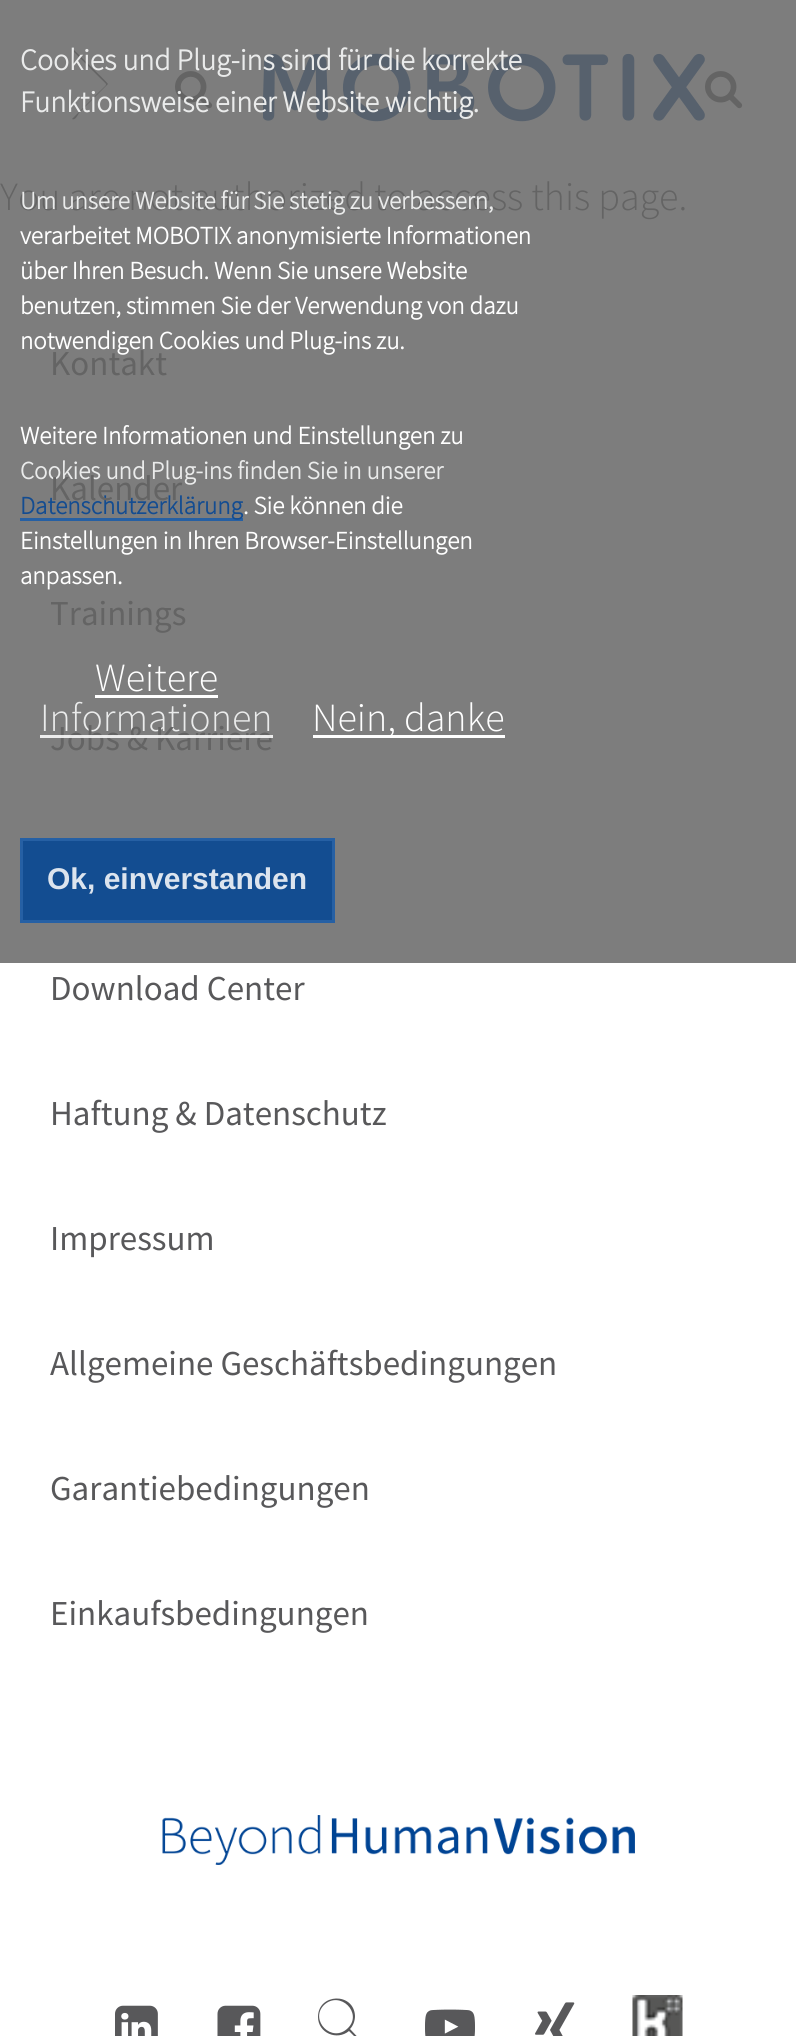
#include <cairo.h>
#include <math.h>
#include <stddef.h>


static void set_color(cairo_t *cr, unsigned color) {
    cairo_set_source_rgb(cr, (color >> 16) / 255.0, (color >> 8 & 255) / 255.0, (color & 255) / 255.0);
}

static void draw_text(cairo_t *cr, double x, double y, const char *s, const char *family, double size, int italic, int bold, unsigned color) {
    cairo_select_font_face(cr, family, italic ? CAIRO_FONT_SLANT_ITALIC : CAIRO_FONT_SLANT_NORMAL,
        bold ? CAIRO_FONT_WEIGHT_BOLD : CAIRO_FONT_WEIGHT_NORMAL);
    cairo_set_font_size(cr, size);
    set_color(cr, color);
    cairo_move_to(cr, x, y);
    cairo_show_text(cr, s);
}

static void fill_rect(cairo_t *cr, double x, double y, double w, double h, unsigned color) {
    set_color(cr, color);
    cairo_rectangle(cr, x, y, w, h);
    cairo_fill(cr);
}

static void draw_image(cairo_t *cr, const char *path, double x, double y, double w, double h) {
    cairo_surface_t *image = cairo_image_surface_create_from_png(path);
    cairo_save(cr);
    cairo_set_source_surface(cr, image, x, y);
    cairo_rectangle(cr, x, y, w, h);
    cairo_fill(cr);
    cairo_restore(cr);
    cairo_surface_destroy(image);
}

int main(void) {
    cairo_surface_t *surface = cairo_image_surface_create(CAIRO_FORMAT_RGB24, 796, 2036);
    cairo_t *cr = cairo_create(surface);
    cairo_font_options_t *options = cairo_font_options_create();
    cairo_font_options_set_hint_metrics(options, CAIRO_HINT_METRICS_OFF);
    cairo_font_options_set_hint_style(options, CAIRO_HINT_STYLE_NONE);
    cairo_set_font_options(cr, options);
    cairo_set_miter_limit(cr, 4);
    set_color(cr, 0xFFFFFF);
    cairo_paint(cr);
    fill_rect(cr, 0, 0, 796, 963, 0x7D7D7D);
    set_color(cr, 0x646464);
    cairo_new_path(cr);
    cairo_move_to(cr, 72, 50);
    cairo_line_to(cr, 100, 78);
    cairo_curve_to(cr, 108, 86, 108, 83, 100, 91);
    cairo_line_to(cr, 72, 119);
    cairo_curve_to(cr, 75, 121, 78, 115, 79, 113);
    cairo_line_to(cr, 108, 84);
    cairo_curve_to(cr, 108, 83, 82, 58, 79, 55);
    cairo_line_to(cr, 73, 49);
    cairo_close_path(cr);
    cairo_fill(cr);
    draw_image(cr, "assets/img1.png", 175, 71, 38, 38);
    draw_image(cr, "assets/img2.png", 263, 53, 442, 69);
    draw_text(cr, 20, 70, "Cookies und Plug-ins sind für die korrekte", "Source Sans Pro", 30, 0, 1, 0xEAEBEB);
    draw_text(cr, 20, 112, "Funktionsweise einer Website wichtig.", "Source Sans Pro", 30, 0, 1, 0xEAEBEB);
    draw_text(cr, 0, 210, "You are not authorized to access this page.", "Source Sans Pro Light", 40, 0, 0, 0x646464);
    draw_text(cr, 20, 209, "Um unsere Website für Sie stetig zu verbessern,", "Source Sans Pro", 25, 0, 1, 0xEAEBEB);
    draw_text(cr, 20, 244, "verarbeitet MOBOTIX anonymisierte Informationen", "Source Sans Pro", 25, 0, 1, 0xFFFFFF);
    draw_text(cr, 20, 279, "über Ihren Besuch. Wenn Sie unsere Website", "Source Sans Pro", 25, 0, 1, 0xFFFFFF);
    draw_text(cr, 20, 314, "benutzen, stimmen Sie der Verwendung von dazu", "Source Sans Pro", 25, 0, 1, 0xFFFFFF);
    draw_text(cr, 20, 349, "notwendigen Cookies und Plug-ins zu.", "Source Sans Pro", 25, 0, 1, 0xFFFFFF);
    draw_text(cr, 20, 444, "Weitere Informationen und Einstellungen zu", "Source Sans Pro", 25, 0, 1, 0xFFFFFF);
    draw_text(cr, 20, 479, "Cookies und Plug-ins finden Sie in unserer", "Source Sans Pro", 25, 0, 1, 0xEAEBEB);
    fill_rect(cr, 20, 518, 223, 3, 0x2660A4);
    draw_text(cr, 20, 514, "Datenschutzerklärung", "Source Sans Pro", 25, 0, 1, 0x134C91);
    draw_text(cr, 243, 514, ". Sie können die", "Source Sans Pro", 25, 0, 1, 0xFFFFFF);
    draw_text(cr, 20, 549, "Einstellungen in Ihren Browser-Einstellungen", "Source Sans Pro", 25, 0, 1, 0xFFFFFF);
    draw_text(cr, 20, 584, "anpassen.", "Source Sans Pro", 25, 0, 1, 0xFFFFFF);
    draw_text(cr, 95, 691, "Weitere", "Source Sans Pro Light", 40, 0, 0, 0xFFFFFF);
    fill_rect(cr, 95, 695, 123, 3, 0xFFFFFF);
    draw_text(cr, 40, 731, "Informationen", "Source Sans Pro Light", 40, 0, 0, 0xEAEBEB);
    draw_text(cr, 50, 750, "Jobs & Karriere", "Source Sans Pro", 35, 0, 0, 0x646464);
    cairo_set_source_rgba(cr, 1, 1, 1, 0.85);
    cairo_rectangle(cr, 40, 735, 233, 3);
    cairo_fill(cr);
    fill_rect(cr, 313, 735, 192, 3, 0xFFFFFF);
    draw_text(cr, 312, 731, "Nein, danke", "Source Sans Pro Light", 40, 0, 0, 0xFFFFFF);
    set_color(cr, 0x134D91);
    cairo_rectangle(cr, 21.5, 839.5, 312, 82);
    cairo_fill_preserve(cr);
    set_color(cr, 0x2660A4);
    cairo_set_line_width(cr, 3);
    cairo_stroke(cr);
    draw_text(cr, 47, 889, "Ok, einverstanden", "Liberation Sans", 30, 0, 1, 0xDCE4EE);
    draw_image(cr, "assets/img1.png", 705, 71, 38, 38);
    draw_text(cr, 50, 375, "Kontakt", "Source Sans Pro", 35, 0, 0, 0x646464);
    draw_text(cr, 50, 500, "Kalender", "Source Sans Pro", 35, 0, 0, 0x646464);
    draw_text(cr, 50, 625, "Trainings", "Source Sans Pro", 35, 0, 0, 0x646464);
    draw_text(cr, 50, 1000, "Download Center", "Source Sans Pro", 35, 0, 0, 0x58585A);
    draw_text(cr, 50, 1125, "Haftung & Datenschutz", "Source Sans Pro", 35, 0, 0, 0x58585A);
    draw_text(cr, 50, 1250, "Impressum", "Source Sans Pro", 35, 0, 0, 0x58585A);
    draw_text(cr, 50, 1375, "Allgemeine Geschäftsbedingungen", "Source Sans Pro", 35, 0, 0, 0x58585A);
    draw_text(cr, 50, 1500, "Garantiebedingungen", "Source Sans Pro", 35, 0, 0, 0x58585A);
    draw_text(cr, 50, 1625, "Einkaufsbedingungen", "Source Sans Pro", 35, 0, 0, 0x58585A);
    draw_image(cr, "assets/img3.png", 162, 1815, 473, 50);
    draw_image(cr, "assets/img4.png", 115, 2005, 43, 31);
    draw_image(cr, "assets/img5.png", 217, 2005, 44, 31);
    cairo_new_path(cr);
    cairo_move_to(cr, 318, 2017);
    cairo_curve_to(cr, 318, 2033, 337, 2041, 349, 2031);
    cairo_line_to(cr, 366, 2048);
    cairo_curve_to(cr, 366, 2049, 368, 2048, 367, 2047);
    cairo_line_to(cr, 350, 2029);
    cairo_curve_to(cr, 353, 2026, 355, 2021, 355, 2016);
    cairo_curve_to(cr, 354, 1992, 318, 1993, 318, 2017);
    cairo_close_path(cr);
    cairo_move_to(cr, 324, 2005);
    cairo_curve_to(cr, 340, 1990, 363, 2013, 348, 2028);
    cairo_curve_to(cr, 332, 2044, 309, 2020, 324, 2005);
    cairo_close_path(cr);
    cairo_fill(cr);
    draw_image(cr, "assets/img6.png", 425, 2009, 50, 27);
    draw_image(cr, "assets/img7.png", 535, 2002, 40, 34);
    draw_image(cr, "assets/img8.png", 632, 1995, 51, 41);
    cairo_surface_write_to_png(surface, "output.png");
    cairo_font_options_destroy(options);
    cairo_destroy(cr);
    cairo_surface_destroy(surface);
    return 0;
}
